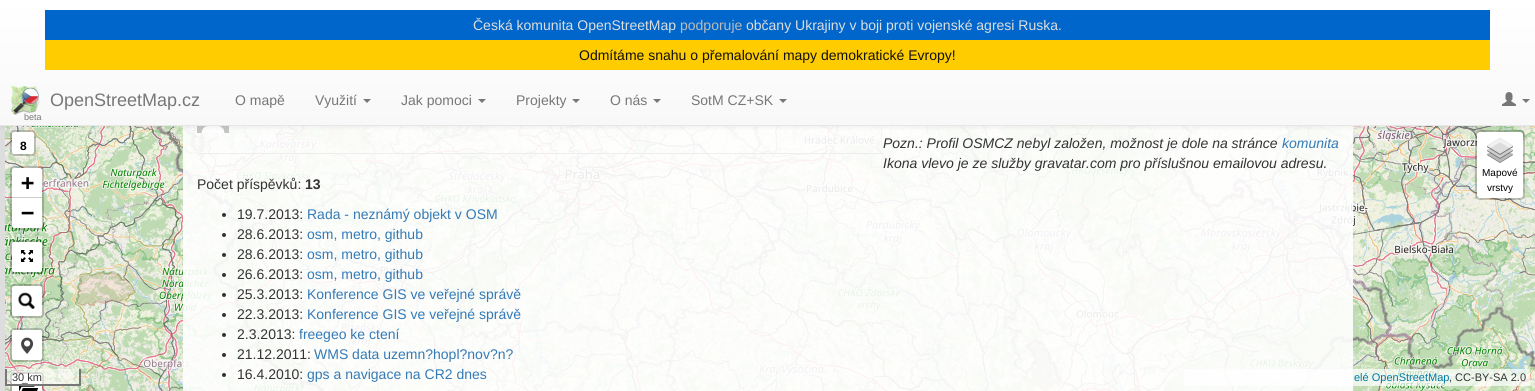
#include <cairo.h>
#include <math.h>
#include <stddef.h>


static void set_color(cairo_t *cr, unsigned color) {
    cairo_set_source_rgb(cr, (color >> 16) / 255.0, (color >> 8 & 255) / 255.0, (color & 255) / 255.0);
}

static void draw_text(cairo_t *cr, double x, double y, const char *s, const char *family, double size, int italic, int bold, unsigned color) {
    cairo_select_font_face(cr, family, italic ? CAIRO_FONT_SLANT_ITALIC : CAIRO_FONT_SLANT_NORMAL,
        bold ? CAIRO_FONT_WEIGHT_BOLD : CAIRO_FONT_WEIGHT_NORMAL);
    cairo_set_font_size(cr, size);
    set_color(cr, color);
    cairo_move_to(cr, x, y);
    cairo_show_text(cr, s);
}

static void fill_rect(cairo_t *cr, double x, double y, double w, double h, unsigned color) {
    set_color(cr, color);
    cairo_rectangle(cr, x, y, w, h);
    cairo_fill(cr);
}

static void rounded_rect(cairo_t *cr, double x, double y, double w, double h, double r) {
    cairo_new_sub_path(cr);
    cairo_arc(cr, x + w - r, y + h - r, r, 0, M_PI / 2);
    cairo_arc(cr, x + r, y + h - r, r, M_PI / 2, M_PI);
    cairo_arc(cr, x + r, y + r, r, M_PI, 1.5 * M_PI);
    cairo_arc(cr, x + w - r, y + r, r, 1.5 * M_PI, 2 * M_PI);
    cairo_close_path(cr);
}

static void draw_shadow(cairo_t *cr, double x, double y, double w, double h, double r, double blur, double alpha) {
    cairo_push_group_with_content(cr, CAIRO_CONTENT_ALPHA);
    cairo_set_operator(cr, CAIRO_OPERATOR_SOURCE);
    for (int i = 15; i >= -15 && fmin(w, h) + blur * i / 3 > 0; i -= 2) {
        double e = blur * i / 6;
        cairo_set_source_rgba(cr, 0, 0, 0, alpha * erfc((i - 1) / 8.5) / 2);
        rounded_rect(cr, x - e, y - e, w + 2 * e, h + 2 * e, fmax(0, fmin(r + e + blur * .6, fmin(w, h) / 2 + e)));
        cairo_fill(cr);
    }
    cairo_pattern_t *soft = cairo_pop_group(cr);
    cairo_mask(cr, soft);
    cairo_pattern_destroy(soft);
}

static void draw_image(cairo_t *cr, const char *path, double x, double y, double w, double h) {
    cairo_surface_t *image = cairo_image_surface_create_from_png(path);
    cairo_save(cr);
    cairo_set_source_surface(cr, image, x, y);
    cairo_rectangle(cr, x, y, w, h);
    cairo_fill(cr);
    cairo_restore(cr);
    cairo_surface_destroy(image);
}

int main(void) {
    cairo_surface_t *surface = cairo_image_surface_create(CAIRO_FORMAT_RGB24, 1535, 391);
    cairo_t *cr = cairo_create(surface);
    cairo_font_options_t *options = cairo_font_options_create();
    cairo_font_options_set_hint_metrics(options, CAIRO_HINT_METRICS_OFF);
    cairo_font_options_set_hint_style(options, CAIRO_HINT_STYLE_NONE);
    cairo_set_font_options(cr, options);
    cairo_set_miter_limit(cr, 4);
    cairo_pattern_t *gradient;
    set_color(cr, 0xDDDDDD);
    cairo_paint(cr);
    draw_image(cr, "assets/img4.png", 5, 126, 256, 119);
    draw_image(cr, "assets/img5.png", 261, 126, 256, 119);
    draw_image(cr, "assets/img6.png", 517, 126, 256, 119);
    draw_image(cr, "assets/img7.png", 773, 126, 256, 119);
    draw_image(cr, "assets/img8.png", 1029, 126, 256, 119);
    draw_image(cr, "assets/img9.png", 1285, 126, 250, 119);
    draw_image(cr, "assets/img10.png", 5, 245, 256, 146);
    draw_image(cr, "assets/img11.png", 261, 245, 256, 146);
    draw_image(cr, "assets/img12.png", 517, 245, 256, 146);
    draw_image(cr, "assets/img13.png", 773, 245, 256, 146);
    draw_image(cr, "assets/img14.png", 1029, 245, 256, 146);
    draw_image(cr, "assets/img15.png", 1285, 245, 250, 146);
    cairo_set_source_rgba(cr, 1, 1, 1, 0.7);
    cairo_rectangle(cr, 1184, 369, 346, 17);
    cairo_fill(cr);
    cairo_set_source_rgba(cr, 1, 1, 1, 0.9);
    cairo_rectangle(cr, 183, 126, 1170, 265);
    cairo_fill(cr);
    draw_image(cr, "assets/img3.png", 197, 126, 32, 7);
    set_color(cr, 0xFFFFFF);
    rounded_rect(cr, 12, 132, 22, 22, 2);
    cairo_fill(cr);
    rounded_rect(cr, 11, 131, 24, 24, 3);
    cairo_set_source_rgba(cr, 0, 0, 0, 0.2);
    cairo_stroke(cr);
    set_color(cr, 0xFFFFFF);
    rounded_rect(cr, 1477, 132, 46, 66, 3);
    cairo_fill(cr);
    rounded_rect(cr, 1476, 131, 48, 68, 4);
    cairo_set_source_rgba(cr, 0, 0, 0, 0.2);
    cairo_stroke(cr);
    set_color(cr, 0x000000);
    draw_shadow(cr, 0, 1, 1535, 126, 0, 2.5, 0.07);
    gradient = cairo_pattern_create_linear(768, 0, 768, 125);
    cairo_pattern_add_color_stop_rgba(gradient, 0, 1, 1, 1, 1);
    cairo_pattern_add_color_stop_rgba(gradient, 1, 0.973, 0.973, 0.973, 1);
    cairo_set_source(cr, gradient);
    cairo_pattern_destroy(gradient);
    cairo_rectangle(cr, 0, 0, 1535, 125);
    cairo_fill(cr);
    fill_rect(cr, 0, 125, 1535, 1, 0xE7E7E7);
    fill_rect(cr, 45, 10, 1445, 30, 0x0066CC);
    draw_text(cr, 473, 30, "Česká komunita OpenStreetMap", "Liberation Sans", 14, 0, 0, 0xDDDDDD);
    draw_text(cr, 680, 30, "podporuje", "Liberation Sans", 14, 0, 0, 0xBBBBBB);
    draw_text(cr, 746, 30, "občany Ukrajiny v boji proti vojenské agresi Ruska.", "Liberation Sans", 14, 0, 0, 0xDDDDDD);
    fill_rect(cr, 45, 40, 1445, 30, 0xFFCC00);
    draw_text(cr, 579, 60, "Odmítáme snahu o přemalování mapy demokratické Evropy!", "Liberation Sans", 14, 0, 0, 0x111111);
    draw_text(cr, 24, 120, "beta", "Liberation Sans", 9, 0, 0, 0x777777);
    draw_image(cr, "assets/img1.png", 11, 86, 29, 29);
    draw_text(cr, 50, 106, "OpenStreetMap.cz", "Liberation Sans", 18, 0, 0, 0x777777);
    draw_text(cr, 235, 105, "O mapě", "Liberation Sans", 14, 0, 0, 0x777777);
    draw_text(cr, 315, 105, "Využití", "Liberation Sans", 14, 0, 0, 0x777777);
    cairo_new_path(cr);
    cairo_move_to(cr, 363, 99);
    cairo_line_to(cr, 371, 99);
    cairo_line_to(cr, 367, 103);
    cairo_close_path(cr);
    cairo_fill(cr);
    draw_text(cr, 401, 105, "Jak pomoci", "Liberation Sans", 14, 0, 0, 0x777777);
    cairo_new_path(cr);
    cairo_move_to(cr, 478, 99);
    cairo_line_to(cr, 486, 99);
    cairo_line_to(cr, 482, 103);
    cairo_close_path(cr);
    cairo_fill(cr);
    draw_text(cr, 516, 105, "Projekty", "Liberation Sans", 14, 0, 0, 0x777777);
    cairo_new_path(cr);
    cairo_move_to(cr, 572, 99);
    cairo_line_to(cr, 580, 99);
    cairo_line_to(cr, 576, 103);
    cairo_close_path(cr);
    cairo_fill(cr);
    draw_text(cr, 610, 105, "O nás", "Liberation Sans", 14, 0, 0, 0x777777);
    cairo_new_path(cr);
    cairo_move_to(cr, 653, 99);
    cairo_line_to(cr, 661, 99);
    cairo_line_to(cr, 657, 103);
    cairo_close_path(cr);
    cairo_fill(cr);
    draw_text(cr, 691, 105, "SotM CZ+SK", "Liberation Sans", 14, 0, 0, 0x777777);
    cairo_new_path(cr);
    cairo_move_to(cr, 779, 99);
    cairo_line_to(cr, 787, 99);
    cairo_line_to(cr, 783, 103);
    cairo_close_path(cr);
    cairo_fill(cr);
    draw_image(cr, "assets/img2.png", 1502, 92, 14, 14);
    cairo_new_path(cr);
    cairo_move_to(cr, 1522, 99);
    cairo_line_to(cr, 1530, 99);
    cairo_line_to(cr, 1526, 103);
    cairo_close_path(cr);
    cairo_fill(cr);
    fill_rect(cr, 197, 153, 686, 1, 0xEEEEEE);
    draw_text(cr, 883, 148, "Pozn.: Profil OSMCZ nebyl založen, možnost je dole na stránce", "Liberation Sans", 14, 1, 0, 0x333333);
    draw_text(cr, 1282, 148, "komunita", "Liberation Sans", 14, 1, 0, 0x337AB7);
    draw_text(cr, 883, 168, "Ikona vlevo je ze služby gravatar.com pro příslušnou emailovou adresu.", "Liberation Sans", 14, 1, 0, 0x333333);
    draw_text(cr, 197, 189, "Počet příspěvků:", "Liberation Sans", 14, 0, 0, 0x333333);
    draw_text(cr, 305, 189, "13", "Liberation Sans", 14, 0, 1, 0x333333);
    cairo_new_path(cr);
    cairo_arc(cr, 224, 215, 2, 0, 2 * M_PI);
    cairo_fill(cr);
    draw_text(cr, 237, 219, "19.7.2013:", "Liberation Sans", 14, 0, 0, 0x333333);
    draw_text(cr, 307, 219, "Rada - neznámý objekt v OSM", "Liberation Sans", 14, 0, 0, 0x337AB7);
    set_color(cr, 0x333333);
    cairo_new_path(cr);
    cairo_arc(cr, 224, 235, 2, 0, 2 * M_PI);
    cairo_fill(cr);
    draw_text(cr, 237, 239, "28.6.2013:", "Liberation Sans", 14, 0, 0, 0x333333);
    draw_text(cr, 307, 239, "osm, metro, github", "Liberation Sans", 14, 0, 0, 0x337AB7);
    set_color(cr, 0x333333);
    cairo_new_path(cr);
    cairo_arc(cr, 224, 255, 2, 0, 2 * M_PI);
    cairo_fill(cr);
    draw_text(cr, 237, 259, "28.6.2013:", "Liberation Sans", 14, 0, 0, 0x333333);
    draw_text(cr, 307, 259, "osm, metro, github", "Liberation Sans", 14, 0, 0, 0x337AB7);
    set_color(cr, 0x333333);
    cairo_new_path(cr);
    cairo_arc(cr, 224, 275, 2, 0, 2 * M_PI);
    cairo_fill(cr);
    draw_text(cr, 237, 279, "26.6.2013:", "Liberation Sans", 14, 0, 0, 0x333333);
    draw_text(cr, 307, 279, "osm, metro, github", "Liberation Sans", 14, 0, 0, 0x337AB7);
    set_color(cr, 0x333333);
    cairo_new_path(cr);
    cairo_arc(cr, 224, 295, 2, 0, 2 * M_PI);
    cairo_fill(cr);
    draw_text(cr, 237, 299, "25.3.2013:", "Liberation Sans", 14, 0, 0, 0x333333);
    draw_text(cr, 307, 299, "Konference GIS ve veřejné správě", "Liberation Sans", 14, 0, 0, 0x337AB7);
    set_color(cr, 0x333333);
    cairo_new_path(cr);
    cairo_arc(cr, 224, 315, 2, 0, 2 * M_PI);
    cairo_fill(cr);
    draw_text(cr, 237, 319, "22.3.2013:", "Liberation Sans", 14, 0, 0, 0x333333);
    draw_text(cr, 307, 319, "Konference GIS ve veřejné správě", "Liberation Sans", 14, 0, 0, 0x337AB7);
    set_color(cr, 0x333333);
    cairo_new_path(cr);
    cairo_arc(cr, 224, 335, 2, 0, 2 * M_PI);
    cairo_fill(cr);
    draw_text(cr, 237, 339, "2.3.2013:", "Liberation Sans", 14, 0, 0, 0x333333);
    draw_text(cr, 299, 339, "freegeo ke ctení", "Liberation Sans", 14, 0, 0, 0x337AB7);
    set_color(cr, 0x333333);
    cairo_new_path(cr);
    cairo_arc(cr, 224, 355, 2, 0, 2 * M_PI);
    cairo_fill(cr);
    draw_text(cr, 237, 359, "21.12.2011:", "Liberation Sans", 14, 0, 0, 0x333333);
    draw_text(cr, 314, 359, "WMS data uzemn?hopl?nov?n?", "Liberation Sans", 14, 0, 0, 0x337AB7);
    set_color(cr, 0x333333);
    cairo_new_path(cr);
    cairo_arc(cr, 224, 375, 2, 0, 2 * M_PI);
    cairo_fill(cr);
    draw_text(cr, 237, 379, "16.4.2010:", "Liberation Sans", 14, 0, 0, 0x333333);
    draw_text(cr, 307, 379, "gps a navigace na CR2 dnes", "Liberation Sans", 14, 0, 0, 0x337AB7);
    draw_text(cr, 20, 150, "8", "Liberation Sans", 12, 0, 1, 0x000000);
    rounded_rect(cr, 11, 167, 32, 62, 3);
    cairo_set_source_rgba(cr, 0, 0, 0, 0.2);
    cairo_stroke(cr);
    set_color(cr, 0xFFFFFF);
    cairo_new_path(cr);
    cairo_move_to(cr, 14, 168);
    cairo_line_to(cr, 40, 168);
    cairo_curve_to(cr, 41, 168, 42, 169, 42, 170);
    cairo_line_to(cr, 42, 198);
    cairo_line_to(cr, 12, 198);
    cairo_line_to(cr, 12, 170);
    cairo_curve_to(cr, 12, 169, 13, 168, 14, 168);
    cairo_close_path(cr);
    cairo_fill(cr);
    fill_rect(cr, 12, 197, 30, 1, 0xCCCCCC);
    draw_text(cr, 21, 190, "+", "DejaVu Sans Mono", 22, 0, 1, 0x000000);
    set_color(cr, 0xFFFFFF);
    cairo_new_path(cr);
    cairo_move_to(cr, 12, 198);
    cairo_line_to(cr, 42, 198);
    cairo_line_to(cr, 42, 226);
    cairo_curve_to(cr, 42, 227, 41, 228, 40, 228);
    cairo_line_to(cr, 14, 228);
    cairo_curve_to(cr, 13, 228, 12, 227, 12, 226);
    cairo_close_path(cr);
    cairo_fill(cr);
    draw_text(cr, 21, 220, "−", "DejaVu Sans Mono", 22, 0, 1, 0x000000);
    rounded_rect(cr, 11, 241, 32, 32, 3);
    cairo_set_source_rgba(cr, 0, 0, 0, 0.2);
    cairo_stroke(cr);
    set_color(cr, 0xFFFFFF);
    rounded_rect(cr, 12, 242, 30, 30, 2);
    cairo_fill(cr);
    draw_image(cr, "assets/img16.png", 21, 250, 12, 12);
    rounded_rect(cr, 12, 286, 30, 30, 2);
    cairo_fill(cr);
    rounded_rect(cr, 11, 285, 32, 32, 3);
    cairo_set_source_rgba(cr, 0, 0, 0, 0.2);
    cairo_stroke(cr);
    draw_image(cr, "assets/img17.png", 18, 292, 17, 17);
    rounded_rect(cr, 11, 329, 32, 32, 3);
    cairo_stroke(cr);
    set_color(cr, 0xFFFFFF);
    rounded_rect(cr, 12, 330, 30, 30, 2);
    cairo_fill(cr);
    draw_image(cr, "assets/img18.png", 21, 337, 13, 17);
    rounded_rect(cr, 11, 373, 32, 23, 3);
    cairo_set_source_rgba(cr, 0, 0, 0, 0.2);
    cairo_stroke(cr);
    set_color(cr, 0xFFFFFF);
    cairo_new_path(cr);
    cairo_move_to(cr, 14, 374);
    cairo_line_to(cr, 40, 374);
    cairo_curve_to(cr, 41, 374, 42, 375, 42, 376);
    cairo_line_to(cr, 42, 391);
    cairo_line_to(cr, 12, 391);
    cairo_line_to(cr, 12, 376);
    cairo_curve_to(cr, 12, 375, 13, 374, 14, 374);
    cairo_close_path(cr);
    cairo_fill(cr);
    draw_image(cr, "assets/img19.png", 19, 382, 20, 9);
    draw_image(cr, "assets/img20.png", 1487, 138, 26, 25);
    draw_text(cr, 1482, 176, "Mapové", "Liberation Sans", 10, 0, 0, 0x000000);
    draw_text(cr, 1487, 191, "vrstvy", "Liberation Sans", 10, 0, 0, 0x000000);
    cairo_set_source_rgba(cr, 1, 1, 1, 0.5);
    cairo_rectangle(cr, 7, 369, 72, 15);
    cairo_fill(cr);
    fill_rect(cr, 79, 369, 2, 17, 0x777777);
    fill_rect(cr, 5, 384, 76, 2, 0x777777);
    fill_rect(cr, 5, 369, 2, 17, 0x777777);
    draw_text(cr, 12, 381, "30 km", "Liberation Sans", 11, 0, 0, 0x333333);
    draw_text(cr, 1354, 381, "elé OpenStreetMap", "Liberation Sans", 11, 0, 0, 0x0078A8);
    draw_text(cr, 1449, 381, ", CC-BY-SA 2.0", "Liberation Sans", 11, 0, 0, 0x333333);
    cairo_surface_write_to_png(surface, "output.png");
    cairo_font_options_destroy(options);
    cairo_destroy(cr);
    cairo_surface_destroy(surface);
    return 0;
}
